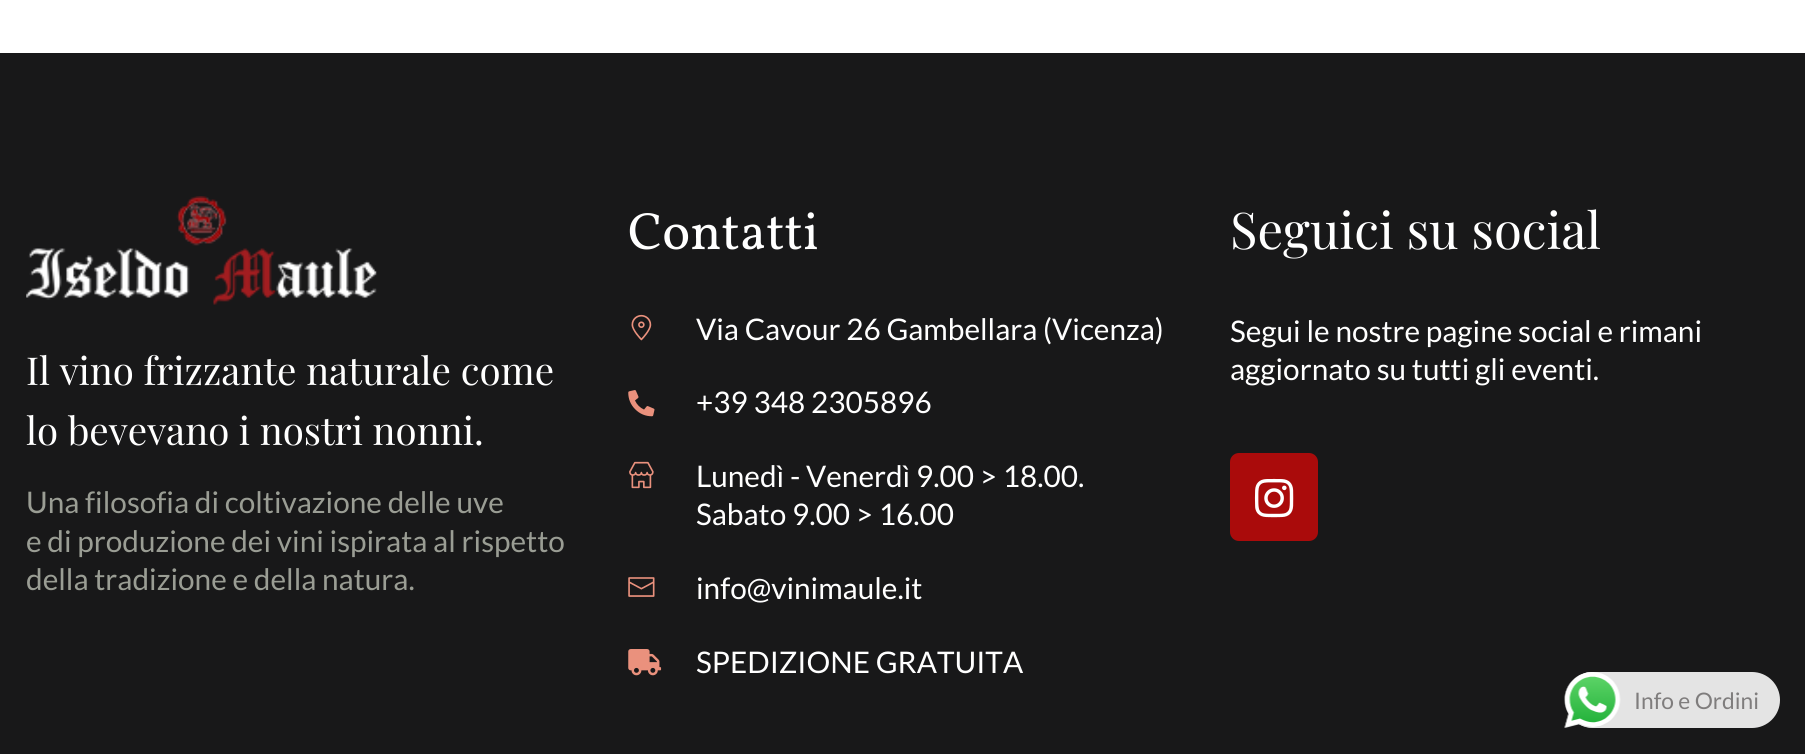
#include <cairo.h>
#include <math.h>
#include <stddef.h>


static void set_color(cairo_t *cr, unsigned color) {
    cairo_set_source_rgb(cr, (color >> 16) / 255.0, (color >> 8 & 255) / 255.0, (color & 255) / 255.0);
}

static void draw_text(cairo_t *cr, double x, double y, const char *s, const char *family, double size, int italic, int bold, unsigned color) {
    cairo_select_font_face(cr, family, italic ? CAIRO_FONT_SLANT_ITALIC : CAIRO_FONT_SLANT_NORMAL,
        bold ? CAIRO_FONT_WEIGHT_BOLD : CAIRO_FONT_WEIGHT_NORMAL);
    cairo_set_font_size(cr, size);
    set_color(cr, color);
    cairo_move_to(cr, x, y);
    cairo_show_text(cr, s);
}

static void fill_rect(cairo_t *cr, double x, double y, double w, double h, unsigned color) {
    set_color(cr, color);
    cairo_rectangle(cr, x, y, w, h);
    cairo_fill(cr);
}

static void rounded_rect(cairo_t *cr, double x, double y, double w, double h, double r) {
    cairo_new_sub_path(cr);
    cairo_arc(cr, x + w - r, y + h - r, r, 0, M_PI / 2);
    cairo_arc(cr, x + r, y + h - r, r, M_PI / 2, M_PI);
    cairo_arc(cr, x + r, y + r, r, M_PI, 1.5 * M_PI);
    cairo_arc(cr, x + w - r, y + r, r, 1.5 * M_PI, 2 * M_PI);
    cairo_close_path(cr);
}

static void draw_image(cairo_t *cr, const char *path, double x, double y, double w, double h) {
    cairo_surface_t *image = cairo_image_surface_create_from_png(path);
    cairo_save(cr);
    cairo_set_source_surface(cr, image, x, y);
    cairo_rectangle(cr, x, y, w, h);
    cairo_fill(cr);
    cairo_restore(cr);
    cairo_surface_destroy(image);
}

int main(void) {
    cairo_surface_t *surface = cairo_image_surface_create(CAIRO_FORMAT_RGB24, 1805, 754);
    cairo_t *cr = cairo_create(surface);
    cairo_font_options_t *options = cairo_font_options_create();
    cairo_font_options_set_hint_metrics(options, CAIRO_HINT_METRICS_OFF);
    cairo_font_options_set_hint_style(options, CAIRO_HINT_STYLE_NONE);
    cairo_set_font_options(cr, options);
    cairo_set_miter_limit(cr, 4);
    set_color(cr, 0xFFFFFF);
    cairo_paint(cr);
    fill_rect(cr, 0, 53, 1805, 701, 0x181819);
    draw_image(cr, "assets/img1.png", 26, 196, 351, 109);
    draw_text(cr, 26, 385, "Il vino frizzante naturale come", "Playfair Display", 38.5, 0, 0, 0xFFFFFF);
    draw_text(cr, 26, 445, "lo bevevano i nostri nonni.", "Playfair Display", 38.5, 0, 0, 0xFFFFFF);
    draw_text(cr, 26, 513, "Una filosofia di coltivazione delle uve", "Lato", 29.75, 0, 0, 0x9A9D94);
    draw_text(cr, 26, 552, "e di produzione dei vini ispirata al rispetto", "Lato", 29.75, 0, 0, 0x9A9D94);
    draw_text(cr, 26, 590, "della tradizione e della natura.", "Lato", 29.75, 0, 0, 0x9A9D94);
    draw_text(cr, 628, 249, "Contatti", "Vollkorn", 52.5, 0, 0, 0xFFFFFF);
    draw_image(cr, "assets/img2.png", 631, 314, 21, 27);
    draw_text(cr, 696, 340, "Via Cavour 26 Gambellara (Vicenza)", "Lato", 29.75, 0, 0, 0xFFFFFF);
    draw_image(cr, "assets/img3.png", 628, 390, 27, 27);
    draw_text(cr, 696, 413, "+39 348 2305896", "Lato", 29.75, 0, 0, 0xFFFFFF);
    draw_image(cr, "assets/img4.png", 629, 461, 25, 28);
    draw_text(cr, 696, 487, "Lunedì - Venerdì 9.00 > 18.00.", "Lato", 29.75, 0, 0, 0xFFFFFF);
    draw_text(cr, 696, 525, "Sabato 9.00 > 16.00", "Lato", 29.75, 0, 0, 0xFFFFFF);
    draw_image(cr, "assets/img5.png", 628, 577, 27, 20);
    draw_text(cr, 696, 599, "info@vinimaule.it", "Lato", 29.75, 0, 0, 0xFFFFFF);
    draw_image(cr, "assets/img6.png", 628, 649, 34, 27);
    draw_text(cr, 696, 673, "SPEDIZIONE GRATUITA", "Lato", 29.75, 0, 0, 0xFFFFFF);
    draw_text(cr, 1230, 249, "Seguici su social", "Playfair Display", 50.75, 0, 0, 0xFFFFFF);
    draw_text(cr, 1230, 342, "Segui le nostre pagine social e rimani", "Lato", 29.75, 0, 0, 0xFFFFFF);
    draw_text(cr, 1230, 380, "aggiornato su tutti gli eventi.", "Lato", 29.75, 0, 0, 0xFFFFFF);
    set_color(cr, 0xAA0B0B);
    rounded_rect(cr, 1230, 453, 88, 88, 9);
    cairo_fill(cr);
    draw_image(cr, "assets/img7.png", 1254, 478, 40, 40);
    set_color(cr, 0xE4E4E4);
    rounded_rect(cr, 1565, 672, 215, 56, 28);
    cairo_fill(cr);
    draw_image(cr, "assets/img8.png", 1564, 672, 57, 56);
    draw_text(cr, 1634, 709, "Info e Ordini", "Lato", 22.75, 0, 0, 0x7F7D7D);
    cairo_surface_write_to_png(surface, "output.png");
    cairo_font_options_destroy(options);
    cairo_destroy(cr);
    cairo_surface_destroy(surface);
    return 0;
}
